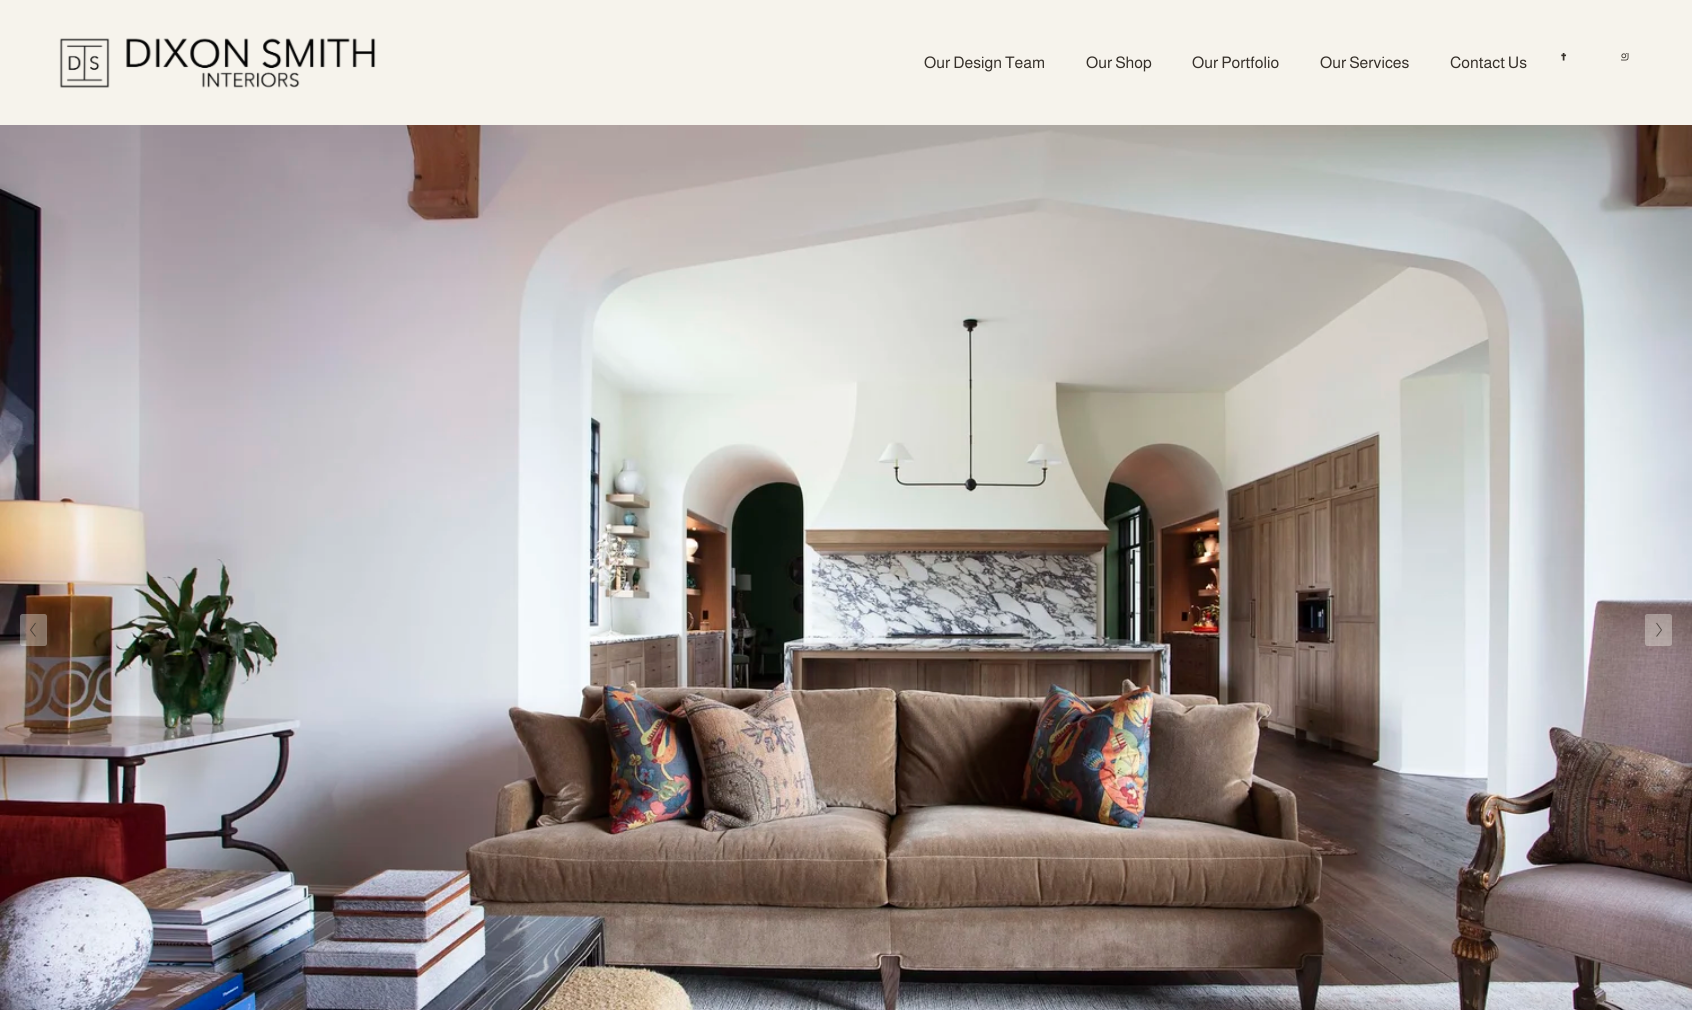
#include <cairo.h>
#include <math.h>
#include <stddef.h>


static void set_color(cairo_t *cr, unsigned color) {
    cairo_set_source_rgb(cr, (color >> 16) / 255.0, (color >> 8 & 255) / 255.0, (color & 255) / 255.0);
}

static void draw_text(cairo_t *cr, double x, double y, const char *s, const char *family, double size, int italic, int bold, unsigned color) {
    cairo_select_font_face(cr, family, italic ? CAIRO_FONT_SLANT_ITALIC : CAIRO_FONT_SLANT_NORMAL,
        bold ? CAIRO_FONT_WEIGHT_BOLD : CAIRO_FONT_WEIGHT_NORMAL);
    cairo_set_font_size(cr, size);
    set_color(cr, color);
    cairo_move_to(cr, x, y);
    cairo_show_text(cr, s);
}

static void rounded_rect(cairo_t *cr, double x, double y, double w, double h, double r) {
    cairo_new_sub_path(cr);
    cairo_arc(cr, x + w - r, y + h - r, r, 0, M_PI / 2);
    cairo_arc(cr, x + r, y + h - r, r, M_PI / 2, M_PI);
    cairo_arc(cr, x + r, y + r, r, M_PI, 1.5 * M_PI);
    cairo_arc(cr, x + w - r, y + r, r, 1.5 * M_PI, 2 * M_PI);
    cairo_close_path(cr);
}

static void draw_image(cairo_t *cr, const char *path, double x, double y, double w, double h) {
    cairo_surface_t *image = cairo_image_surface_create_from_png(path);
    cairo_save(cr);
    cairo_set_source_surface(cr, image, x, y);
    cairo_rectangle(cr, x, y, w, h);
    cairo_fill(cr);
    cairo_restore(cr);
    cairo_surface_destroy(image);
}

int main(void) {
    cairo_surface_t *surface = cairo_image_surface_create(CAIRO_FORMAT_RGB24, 1692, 1010);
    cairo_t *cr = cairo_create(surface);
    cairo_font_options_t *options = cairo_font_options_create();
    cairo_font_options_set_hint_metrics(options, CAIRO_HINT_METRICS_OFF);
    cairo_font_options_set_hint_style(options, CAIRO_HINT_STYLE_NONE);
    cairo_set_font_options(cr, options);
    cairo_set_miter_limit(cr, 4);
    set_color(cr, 0xF6F3EC);
    cairo_paint(cr);
    draw_image(cr, "assets/img1.png", 59, 38, 317, 50);
    draw_text(cr, 924, 68, "Our Design Team", "Almarai", 16, 0, 0, 0x36302A);
    draw_text(cr, 1086, 68, "Our Shop", "Almarai", 16, 0, 0, 0x36302A);
    draw_text(cr, 1192, 68, "Our Portfolio", "Almarai", 16, 0, 0, 0x36302A);
    draw_text(cr, 1320, 68, "Our Services", "Almarai", 16, 0, 0, 0x36302A);
    draw_text(cr, 1450, 68, "Contact Us", "Almarai", 16, 0, 0, 0x36302A);
    draw_image(cr, "assets/img2.png", 1561, 53, 6, 8);
    draw_image(cr, "assets/img3.png", 1621, 53, 8, 8);
    draw_image(cr, "assets/img4.png", 0, 125, 1692, 885);
    cairo_set_source_rgba(cr, 0.965, 0.953, 0.925, 0.38);
    rounded_rect(cr, 20, 614, 27, 32, 2.5);
    cairo_fill(cr);
    cairo_new_path(cr);
    cairo_move_to(cr, 35.5, 636.5);
    cairo_line_to(cr, 30.5, 630);
    cairo_line_to(cr, 35.5, 623);
    cairo_set_source_rgba(cr, 0.212, 0.188, 0.165, 0.75);
    cairo_set_line_width(cr, 1);
    cairo_stroke(cr);
    cairo_set_source_rgba(cr, 0.965, 0.953, 0.925, 0.38);
    rounded_rect(cr, 1645, 614, 27, 32, 2.5);
    cairo_fill(cr);
    cairo_new_path(cr);
    cairo_move_to(cr, 1656.5, 623);
    cairo_line_to(cr, 1661.5, 630);
    cairo_line_to(cr, 1656.5, 636.5);
    cairo_set_source_rgba(cr, 0.212, 0.188, 0.165, 0.75);
    cairo_stroke(cr);
    cairo_surface_write_to_png(surface, "output.png");
    cairo_font_options_destroy(options);
    cairo_destroy(cr);
    cairo_surface_destroy(surface);
    return 0;
}
